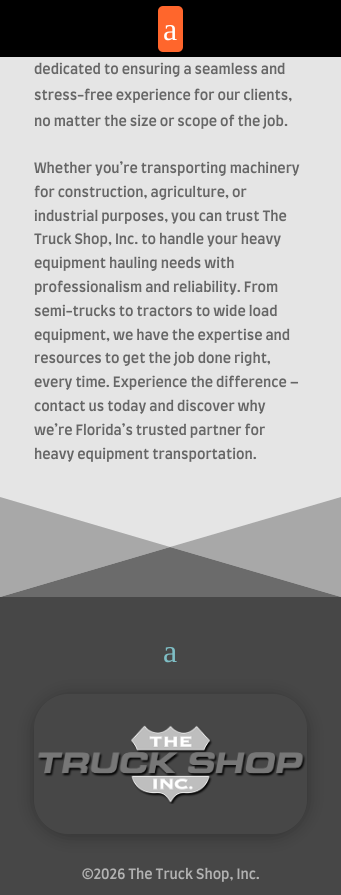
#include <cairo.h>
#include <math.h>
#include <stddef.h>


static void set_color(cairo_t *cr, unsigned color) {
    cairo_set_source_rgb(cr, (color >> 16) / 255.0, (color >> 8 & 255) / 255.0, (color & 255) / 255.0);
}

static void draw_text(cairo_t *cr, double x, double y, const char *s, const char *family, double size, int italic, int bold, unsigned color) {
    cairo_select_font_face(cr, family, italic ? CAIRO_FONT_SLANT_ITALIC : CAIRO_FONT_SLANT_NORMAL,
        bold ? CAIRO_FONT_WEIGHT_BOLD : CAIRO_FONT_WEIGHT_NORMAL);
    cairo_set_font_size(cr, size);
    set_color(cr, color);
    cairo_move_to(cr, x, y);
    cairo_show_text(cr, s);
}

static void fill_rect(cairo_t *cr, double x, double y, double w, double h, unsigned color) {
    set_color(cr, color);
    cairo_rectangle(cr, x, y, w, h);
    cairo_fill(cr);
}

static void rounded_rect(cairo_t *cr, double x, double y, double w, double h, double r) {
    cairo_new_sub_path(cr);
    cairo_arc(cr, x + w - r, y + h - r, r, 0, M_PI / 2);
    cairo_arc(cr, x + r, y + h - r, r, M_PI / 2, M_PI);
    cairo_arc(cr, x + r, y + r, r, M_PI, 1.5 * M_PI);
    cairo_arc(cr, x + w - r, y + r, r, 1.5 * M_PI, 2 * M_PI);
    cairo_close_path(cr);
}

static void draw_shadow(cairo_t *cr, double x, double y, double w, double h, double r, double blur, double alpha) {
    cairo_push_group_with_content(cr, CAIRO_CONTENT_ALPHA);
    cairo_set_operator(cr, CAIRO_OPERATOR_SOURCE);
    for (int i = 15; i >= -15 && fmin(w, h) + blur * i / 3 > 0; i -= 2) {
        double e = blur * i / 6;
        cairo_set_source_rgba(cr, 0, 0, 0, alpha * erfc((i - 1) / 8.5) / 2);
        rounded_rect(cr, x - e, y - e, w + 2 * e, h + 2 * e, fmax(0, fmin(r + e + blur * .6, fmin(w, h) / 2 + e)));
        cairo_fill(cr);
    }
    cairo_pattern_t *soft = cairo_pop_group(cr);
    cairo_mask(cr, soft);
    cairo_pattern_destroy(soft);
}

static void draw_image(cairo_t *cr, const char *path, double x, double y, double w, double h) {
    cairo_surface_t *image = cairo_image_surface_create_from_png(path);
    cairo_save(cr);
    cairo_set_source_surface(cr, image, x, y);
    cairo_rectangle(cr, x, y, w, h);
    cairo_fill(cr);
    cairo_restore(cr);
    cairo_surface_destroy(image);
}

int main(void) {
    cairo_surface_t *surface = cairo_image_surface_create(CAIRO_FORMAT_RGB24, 341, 895);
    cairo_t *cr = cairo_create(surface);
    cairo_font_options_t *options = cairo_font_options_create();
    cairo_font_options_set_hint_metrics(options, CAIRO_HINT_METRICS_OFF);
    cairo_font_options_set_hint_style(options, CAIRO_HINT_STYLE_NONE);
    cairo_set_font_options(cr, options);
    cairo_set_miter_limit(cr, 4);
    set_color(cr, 0xE5E5E5);
    cairo_paint(cr);
    fill_rect(cr, 0, 0, 341, 57, 0x000000);
    set_color(cr, 0xFF662C);
    rounded_rect(cr, 158, 6, 25, 46, 5);
    cairo_fill(cr);
    draw_text(cr, 163, 40, "a", "Liberation Serif", 32, 0, 0, 0xFFFFFF);
    draw_text(cr, 34, 74, "dedicated to ensuring a seamless and", "Farro Medium", 14, 0, 0, 0x666666);
    draw_text(cr, 34, 100, "stress-free experience for our clients,", "Farro Medium", 14, 0, 0, 0x666666);
    draw_text(cr, 34, 126, "no matter the size or scope of the job.", "Farro Medium", 14, 0, 0, 0x666666);
    draw_text(cr, 34, 173, "Whether you’re transporting machinery", "Farro Medium", 14, 0, 0, 0x666666);
    draw_text(cr, 34, 197, "for construction, agriculture, or", "Farro Medium", 14, 0, 0, 0x666666);
    draw_text(cr, 34, 221, "industrial purposes, you can trust The", "Farro Medium", 14, 0, 0, 0x666666);
    draw_text(cr, 34, 244, "Truck Shop, Inc. to handle your heavy", "Farro Medium", 14, 0, 0, 0x666666);
    draw_text(cr, 34, 268, "equipment hauling needs with", "Farro Medium", 14, 0, 0, 0x666666);
    draw_text(cr, 34, 292, "professionalism and reliability. From", "Farro Medium", 14, 0, 0, 0x666666);
    draw_text(cr, 34, 316, "semi-trucks to tractors to wide load", "Farro Medium", 14, 0, 0, 0x666666);
    draw_text(cr, 34, 340, "equipment, we have the expertise and", "Farro Medium", 14, 0, 0, 0x666666);
    draw_text(cr, 34, 363, "resources to get the job done right,", "Farro Medium", 14, 0, 0, 0x666666);
    draw_text(cr, 34, 387, "every time. Experience the difference –", "Farro Medium", 14, 0, 0, 0x666666);
    draw_text(cr, 34, 411, "contact us today and discover why", "Farro Medium", 14, 0, 0, 0x666666);
    draw_text(cr, 34, 435, "we’re Florida’s trusted partner for", "Farro Medium", 14, 0, 0, 0x666666);
    draw_text(cr, 34, 459, "heavy equipment transportation.", "Farro Medium", 14, 0, 0, 0x666666);
    set_color(cr, 0xA8A8A8);
    cairo_new_path(cr);
    cairo_move_to(cr, 0, 597);
    cairo_line_to(cr, 170, 547);
    cairo_line_to(cr, 341, 597);
    cairo_line_to(cr, 341, 497);
    cairo_line_to(cr, 170, 547);
    cairo_line_to(cr, 0, 497);
    cairo_close_path(cr);
    cairo_fill(cr);
    set_color(cr, 0x6B6B6B);
    cairo_new_path(cr);
    cairo_move_to(cr, 0, 597);
    cairo_line_to(cr, 341, 597);
    cairo_line_to(cr, 170, 547);
    cairo_close_path(cr);
    cairo_fill(cr);
    fill_rect(cr, 0, 597, 341, 298, 0x474747);
    draw_text(cr, 163, 662, "a", "Liberation Serif", 32, 0, 0, 0x7EBEC5);
    cairo_save(cr);
    cairo_set_fill_rule(cr, CAIRO_FILL_RULE_EVEN_ODD);
    cairo_new_path(cr);
    cairo_move_to(cr, 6, 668);
    cairo_line_to(cr, 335, 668);
    cairo_line_to(cr, 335, 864);
    cairo_line_to(cr, 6, 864);
    cairo_close_path(cr);
    cairo_move_to(cr, 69, 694);
    cairo_line_to(cr, 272, 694);
    cairo_curve_to(cr, 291.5, 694, 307, 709.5, 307, 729);
    cairo_line_to(cr, 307, 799);
    cairo_curve_to(cr, 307, 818.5, 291.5, 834, 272, 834);
    cairo_line_to(cr, 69, 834);
    cairo_curve_to(cr, 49.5, 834, 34, 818.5, 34, 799);
    cairo_line_to(cr, 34, 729);
    cairo_curve_to(cr, 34, 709.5, 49.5, 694, 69, 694);
    cairo_close_path(cr);
    cairo_clip(cr);
    set_color(cr, 0x000000);
    draw_shadow(cr, 34, 696, 273, 140, 35, 9, 0.3);
    cairo_restore(cr);
    draw_image(cr, "assets/img1.png", 38, 725, 268, 79);
    draw_text(cr, 82, 879, "©2026 The Truck Shop, Inc.", "Farro Medium", 14, 0, 0, 0xB2B2B2);
    cairo_surface_write_to_png(surface, "output.png");
    cairo_font_options_destroy(options);
    cairo_destroy(cr);
    cairo_surface_destroy(surface);
    return 0;
}
